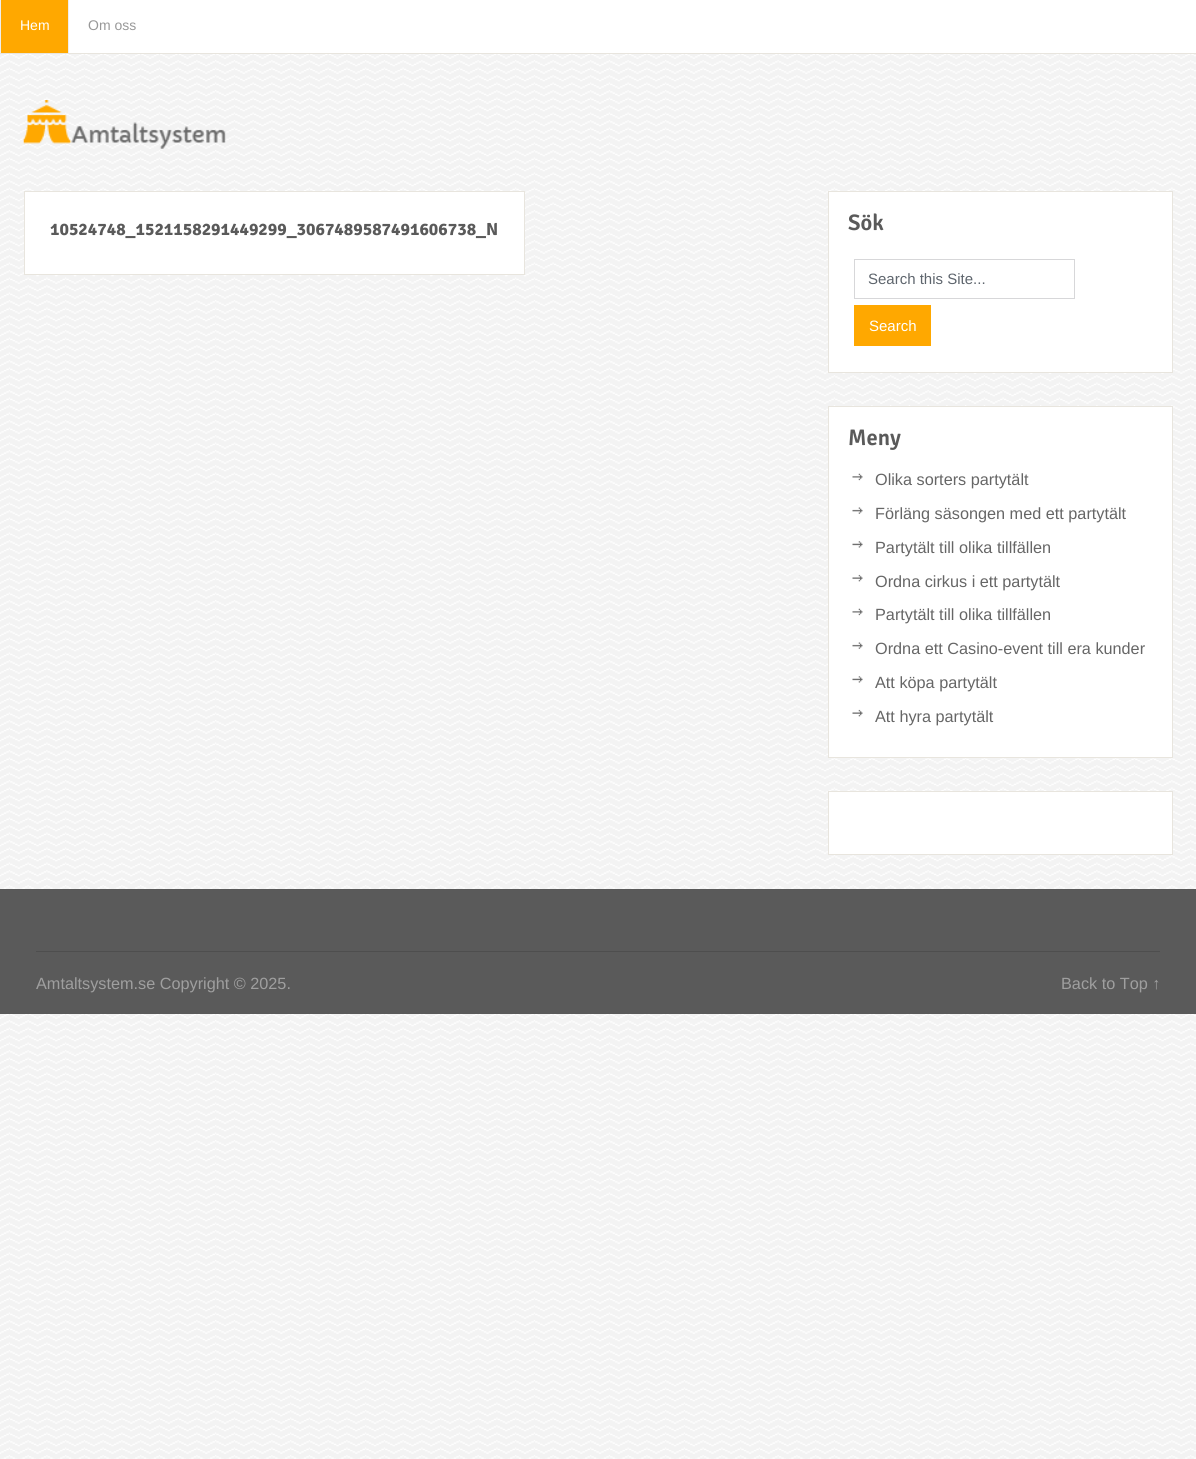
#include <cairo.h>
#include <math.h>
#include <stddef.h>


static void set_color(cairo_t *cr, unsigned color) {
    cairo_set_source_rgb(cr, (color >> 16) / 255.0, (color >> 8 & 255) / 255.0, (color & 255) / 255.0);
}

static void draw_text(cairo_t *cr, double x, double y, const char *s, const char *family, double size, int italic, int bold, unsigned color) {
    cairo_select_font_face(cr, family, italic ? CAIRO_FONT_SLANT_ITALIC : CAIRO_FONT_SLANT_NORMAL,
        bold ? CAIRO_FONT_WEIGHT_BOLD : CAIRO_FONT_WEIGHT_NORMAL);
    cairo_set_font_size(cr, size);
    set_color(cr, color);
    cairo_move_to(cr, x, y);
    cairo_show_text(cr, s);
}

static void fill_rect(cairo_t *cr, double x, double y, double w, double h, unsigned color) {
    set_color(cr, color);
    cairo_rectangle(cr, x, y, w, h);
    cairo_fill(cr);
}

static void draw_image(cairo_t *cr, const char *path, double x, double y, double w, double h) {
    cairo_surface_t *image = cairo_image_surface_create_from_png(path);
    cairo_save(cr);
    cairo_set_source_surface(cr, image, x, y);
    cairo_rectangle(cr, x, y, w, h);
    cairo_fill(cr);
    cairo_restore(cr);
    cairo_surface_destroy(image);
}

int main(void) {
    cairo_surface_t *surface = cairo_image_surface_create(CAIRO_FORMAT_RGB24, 1196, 1459);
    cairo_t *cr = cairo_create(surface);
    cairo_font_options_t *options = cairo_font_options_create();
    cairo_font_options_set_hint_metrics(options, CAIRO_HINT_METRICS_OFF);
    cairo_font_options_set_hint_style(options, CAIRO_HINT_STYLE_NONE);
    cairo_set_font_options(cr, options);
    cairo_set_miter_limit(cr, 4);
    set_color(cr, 0xFFFFFF);
    cairo_paint(cr);
    draw_image(cr, "assets/img1.png", 0, 54, 1196, 1405);
    fill_rect(cr, 0, 53, 1196, 1, 0xE8E5DE);
    fill_rect(cr, 1, 0, 67, 53, 0xFFA800);
    fill_rect(cr, 0, 0, 1, 53, 0xEEEEEE);
    draw_text(cr, 20, 30, "Hem", "Liberation Sans", 14, 0, 0, 0xFFFFFF);
    fill_rect(cr, 68, 0, 1, 53, 0xEEEEEE);
    draw_text(cr, 88, 30, "Om oss", "Liberation Sans", 14, 0, 0, 0x989898);
    draw_image(cr, "assets/img2.png", 23, 100, 203, 49);
    set_color(cr, 0xFFFFFF);
    cairo_rectangle(cr, 24.5, 191.5, 500, 83);
    cairo_fill_preserve(cr);
    set_color(cr, 0xE8E5DE);
    cairo_set_line_width(cr, 1);
    cairo_stroke(cr);
    draw_text(cr, 50, 235, "10524748_1521158291449299_3067489587491606738_N", "Signika", 17.5, 0, 1, 0x5A5A5A);
    set_color(cr, 0xFFFFFF);
    cairo_rectangle(cr, 828.5, 191.5, 344, 181);
    cairo_fill_preserve(cr);
    set_color(cr, 0xE8E5DE);
    cairo_stroke(cr);
    draw_text(cr, 848, 230, "Sök", "Signika SemiBold", 22.5, 0, 0, 0x5A5A5A);
    cairo_rectangle(cr, 854.5, 259.5, 220, 39);
    set_color(cr, 0xD7D7D9);
    cairo_stroke(cr);
    draw_text(cr, 868, 284, "Search this Site...", "Liberation Sans", 15, 0, 0, 0x5E656D);
    fill_rect(cr, 854, 305, 77, 41, 0xFFA800);
    draw_text(cr, 869, 331, "Search", "Liberation Sans", 15, 0, 0, 0xFFFFFF);
    cairo_rectangle(cr, 828.5, 406.5, 344, 351);
    cairo_fill_preserve(cr);
    set_color(cr, 0xE8E5DE);
    cairo_stroke(cr);
    draw_text(cr, 848, 445, "Meny", "Signika SemiBold", 22.5, 0, 0, 0x5A5A5A);
    draw_image(cr, "assets/img3.png", 852, 473, 11, 8);
    draw_text(cr, 875, 485, "Olika sorters partytält", "Liberation Sans", 16.25, 0, 0, 0x666666);
    draw_image(cr, "assets/img4.png", 852, 507, 11, 7);
    draw_text(cr, 875, 519, "Förläng säsongen med ett partytält", "Liberation Sans", 16.25, 0, 0, 0x666666);
    draw_image(cr, "assets/img5.png", 852, 541, 11, 7);
    draw_text(cr, 875, 553, "Partytält till olika tillfällen", "Liberation Sans", 16.25, 0, 0, 0x666666);
    draw_image(cr, "assets/img6.png", 852, 574, 11, 8);
    draw_text(cr, 875, 587, "Ordna cirkus i ett partytält", "Liberation Sans", 16.25, 0, 0, 0x666666);
    draw_image(cr, "assets/img3.png", 852, 608, 11, 8);
    draw_text(cr, 875, 620, "Partytält till olika tillfällen", "Liberation Sans", 16.25, 0, 0, 0x666666);
    draw_image(cr, "assets/img4.png", 852, 642, 11, 7);
    draw_text(cr, 875, 654, "Ordna ett Casino-event till era kunder", "Liberation Sans", 16.25, 0, 0, 0x666666);
    draw_image(cr, "assets/img5.png", 852, 676, 11, 7);
    draw_text(cr, 875, 688, "Att köpa partytält", "Liberation Sans", 16.25, 0, 0, 0x666666);
    draw_image(cr, "assets/img6.png", 852, 709, 11, 8);
    draw_text(cr, 875, 722, "Att hyra partytält", "Liberation Sans", 16.25, 0, 0, 0x666666);
    set_color(cr, 0xFFFFFF);
    cairo_rectangle(cr, 828.5, 791.5, 344, 63);
    cairo_fill_preserve(cr);
    set_color(cr, 0xE8E5DE);
    cairo_stroke(cr);
    fill_rect(cr, 0, 889, 1196, 125, 0x5A5A5A);
    fill_rect(cr, 36, 951, 1124, 1, 0x4E4E4E);
    draw_text(cr, 36, 989, "Amtaltsystem.se Copyright © 2025.", "Liberation Sans", 16.25, 0, 0, 0x9F9F9F);
    draw_text(cr, 1061, 989, "Back to Top ↑", "Liberation Sans", 16.25, 0, 0, 0x9F9F9F);
    cairo_surface_write_to_png(surface, "output.png");
    cairo_font_options_destroy(options);
    cairo_destroy(cr);
    cairo_surface_destroy(surface);
    return 0;
}
